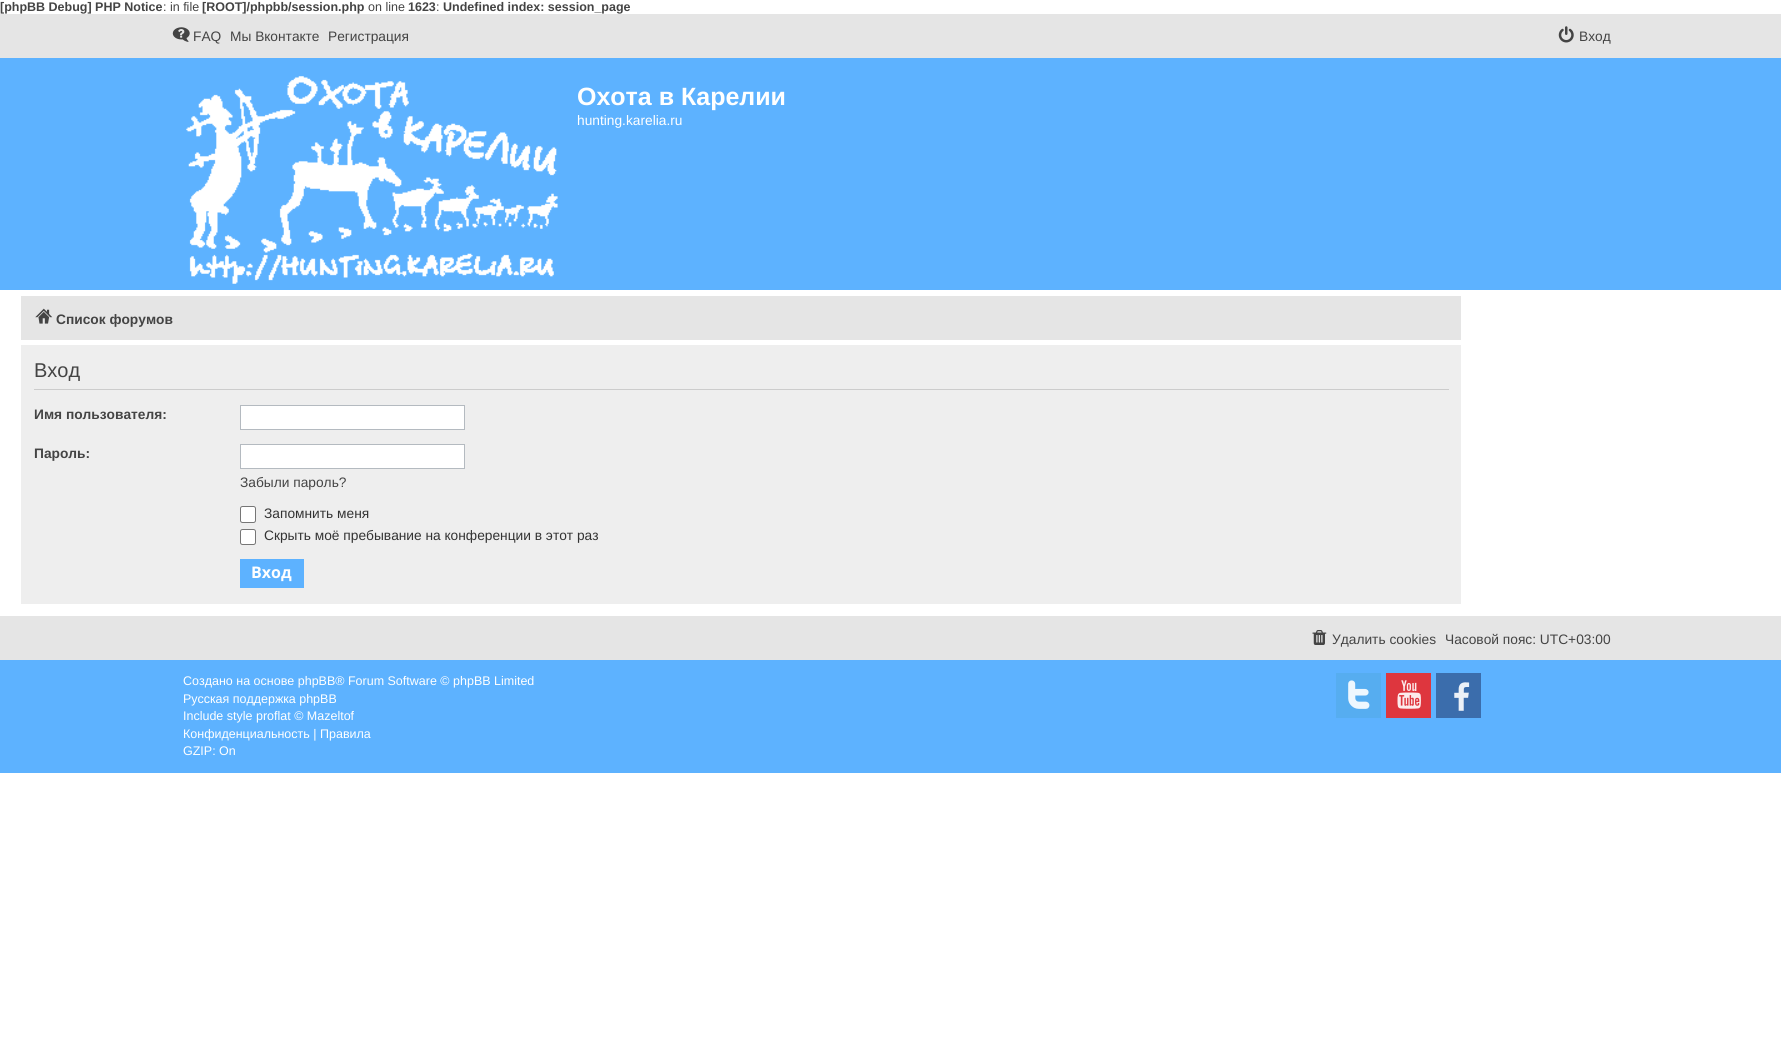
#include <cairo.h>
#include <math.h>
#include <stddef.h>


static void set_color(cairo_t *cr, unsigned color) {
    cairo_set_source_rgb(cr, (color >> 16) / 255.0, (color >> 8 & 255) / 255.0, (color & 255) / 255.0);
}

static void draw_text(cairo_t *cr, double x, double y, const char *s, const char *family, double size, int italic, int bold, unsigned color) {
    cairo_select_font_face(cr, family, italic ? CAIRO_FONT_SLANT_ITALIC : CAIRO_FONT_SLANT_NORMAL,
        bold ? CAIRO_FONT_WEIGHT_BOLD : CAIRO_FONT_WEIGHT_NORMAL);
    cairo_set_font_size(cr, size);
    set_color(cr, color);
    cairo_move_to(cr, x, y);
    cairo_show_text(cr, s);
}

static void fill_rect(cairo_t *cr, double x, double y, double w, double h, unsigned color) {
    set_color(cr, color);
    cairo_rectangle(cr, x, y, w, h);
    cairo_fill(cr);
}

static void rounded_rect(cairo_t *cr, double x, double y, double w, double h, double r) {
    cairo_new_sub_path(cr);
    cairo_arc(cr, x + w - r, y + h - r, r, 0, M_PI / 2);
    cairo_arc(cr, x + r, y + h - r, r, M_PI / 2, M_PI);
    cairo_arc(cr, x + r, y + r, r, M_PI, 1.5 * M_PI);
    cairo_arc(cr, x + w - r, y + r, r, 1.5 * M_PI, 2 * M_PI);
    cairo_close_path(cr);
}

static void draw_image(cairo_t *cr, const char *path, double x, double y, double w, double h) {
    cairo_surface_t *image = cairo_image_surface_create_from_png(path);
    cairo_save(cr);
    cairo_set_source_surface(cr, image, x, y);
    cairo_rectangle(cr, x, y, w, h);
    cairo_fill(cr);
    cairo_restore(cr);
    cairo_surface_destroy(image);
}

int main(void) {
    cairo_surface_t *surface = cairo_image_surface_create(CAIRO_FORMAT_RGB24, 1781, 1038);
    cairo_t *cr = cairo_create(surface);
    cairo_font_options_t *options = cairo_font_options_create();
    cairo_font_options_set_hint_metrics(options, CAIRO_HINT_METRICS_OFF);
    cairo_font_options_set_hint_style(options, CAIRO_HINT_STYLE_NONE);
    cairo_set_font_options(cr, options);
    cairo_set_miter_limit(cr, 4);
    set_color(cr, 0xFFFFFF);
    cairo_paint(cr);
    draw_text(cr, 0, 11, "[phpBB Debug] PHP Notice", "Liberation Sans", 12.5, 0, 1, 0x444444);
    draw_text(cr, 163, 11, ": in file", "Liberation Sans", 12.5, 0, 0, 0x444444);
    draw_text(cr, 202, 11, "[ROOT]/phpbb/session.php", "Liberation Sans", 12.5, 0, 1, 0x444444);
    draw_text(cr, 368, 11, "on line", "Liberation Sans", 12.5, 0, 0, 0x444444);
    draw_text(cr, 408, 11, "1623", "Liberation Sans", 12.5, 0, 1, 0x444444);
    draw_text(cr, 436, 11, ":", "Liberation Sans", 12.5, 0, 0, 0x444444);
    draw_text(cr, 443, 11, "Undefined index: session_page", "Liberation Sans", 12.5, 0, 1, 0x444444);
    fill_rect(cr, 0, 14, 1781, 44, 0xE5E5E5);
    draw_image(cr, "assets/img1.png", 172, 27, 18, 15);
    draw_text(cr, 193, 41, "FAQ", "Liberation Sans", 13.75, 0, 0, 0x444444);
    draw_text(cr, 230, 41, "Мы Вконтакте", "Liberation Sans", 13.75, 0, 0, 0x444444);
    draw_text(cr, 328, 41, "Регистрация", "Liberation Sans", 13.75, 0, 0, 0x444444);
    draw_image(cr, "assets/img2.png", 1558, 26, 16, 17);
    draw_text(cr, 1579, 41, "Вход", "Liberation Sans", 13.75, 0, 0, 0x444444);
    fill_rect(cr, 0, 58, 1781, 232, 0x5DB2FF);
    draw_image(cr, "assets/img3.png", 186, 76, 372, 208);
    draw_text(cr, 577, 105, "Охота в Карелии", "Liberation Sans", 25, 0, 1, 0xFFFFFF);
    draw_text(cr, 577, 125, "hunting.karelia.ru", "Liberation Sans", 13.75, 0, 0, 0xFFFFFF);
    fill_rect(cr, 21, 296, 1440, 44, 0xE5E5E5);
    draw_image(cr, "assets/img4.png", 35, 308, 18, 16);
    draw_text(cr, 56, 324, "Список форумов", "Liberation Sans", 13.75, 0, 1, 0x444444);
    fill_rect(cr, 21, 345, 1440, 259, 0xEEEEEE);
    fill_rect(cr, 34, 389, 1415, 1, 0xCCCCCC);
    draw_text(cr, 34, 377, "Вход", "Liberation Sans", 20, 0, 0, 0x444444);
    draw_text(cr, 34, 419, "Имя пользователя:", "Liberation Sans", 13.75, 0, 1, 0x444444);
    set_color(cr, 0xFFFFFF);
    cairo_rectangle(cr, 240.5, 405.5, 224, 24);
    cairo_fill_preserve(cr);
    set_color(cr, 0xB4BAC0);
    cairo_set_line_width(cr, 1);
    cairo_stroke(cr);
    draw_text(cr, 34, 458, "Пароль:", "Liberation Sans", 13.75, 0, 1, 0x444444);
    set_color(cr, 0xFFFFFF);
    cairo_rectangle(cr, 240.5, 444.5, 224, 24);
    cairo_fill_preserve(cr);
    set_color(cr, 0xB4BAC0);
    cairo_stroke(cr);
    draw_text(cr, 240, 487, "Забыли пароль?", "Liberation Sans", 13.75, 0, 0, 0x444444);
    set_color(cr, 0xFFFFFF);
    rounded_rect(cr, 240.5, 506.5, 15, 16, 2);
    cairo_fill_preserve(cr);
    set_color(cr, 0x767676);
    cairo_stroke(cr);
    draw_text(cr, 264, 518, "Запомнить меня", "Liberation Sans", 13.75, 0, 0, 0x333333);
    set_color(cr, 0xFFFFFF);
    rounded_rect(cr, 240.5, 529.5, 15, 15, 2);
    cairo_fill_preserve(cr);
    set_color(cr, 0x767676);
    cairo_stroke(cr);
    draw_text(cr, 264, 540, "Скрыть моё пребывание на конференции в этот раз", "Liberation Sans", 13.75, 0, 0, 0x333333);
    fill_rect(cr, 240, 559, 64, 29, 0x5DB2FF);
    draw_text(cr, 251, 578, "Вход", "Open Sans", 16, 0, 1, 0xFFFFFF);
    fill_rect(cr, 0, 616, 1781, 44, 0xE5E5E5);
    draw_image(cr, "assets/img5.png", 1312, 630, 15, 15);
    draw_text(cr, 1332, 644, "Удалить cookies", "Liberation Sans", 13.75, 0, 0, 0x444444);
    draw_text(cr, 1445, 644, "Часовой пояс: UTC+03:00", "Liberation Sans", 13.75, 0, 0, 0x444444);
    fill_rect(cr, 0, 660, 1781, 113, 0x5DB2FF);
    draw_text(cr, 183, 685, "Создано на основе phpBB® Forum Software © phpBB Limited", "Liberation Sans", 12.5, 0, 0, 0xFFFFFF);
    draw_text(cr, 183, 703, "Русская поддержка phpBB", "Liberation Sans", 12.5, 0, 0, 0xFFFFFF);
    draw_text(cr, 183, 720, "Include style proflat © Mazeltof", "Liberation Sans", 12.5, 0, 0, 0xFFFFFF);
    draw_text(cr, 183, 738, "Конфиденциальность | Правила", "Liberation Sans", 12.5, 0, 0, 0xFFFFFF);
    draw_text(cr, 183, 755, "GZIP: On", "Liberation Sans", 12.5, 0, 0, 0xFFFFFF);
    fill_rect(cr, 1336, 673, 45, 45, 0x56ADF0);
    draw_image(cr, "assets/img6.png", 1348, 680, 22, 29);
    fill_rect(cr, 1386, 673, 45, 45, 0xDE363E);
    draw_image(cr, "assets/img7.png", 1397, 680, 24, 29);
    fill_rect(cr, 1436, 673, 45, 45, 0x3B6DAC);
    draw_image(cr, "assets/img8.png", 1454, 682, 16, 29);
    cairo_surface_write_to_png(surface, "output.png");
    cairo_font_options_destroy(options);
    cairo_destroy(cr);
    cairo_surface_destroy(surface);
    return 0;
}
